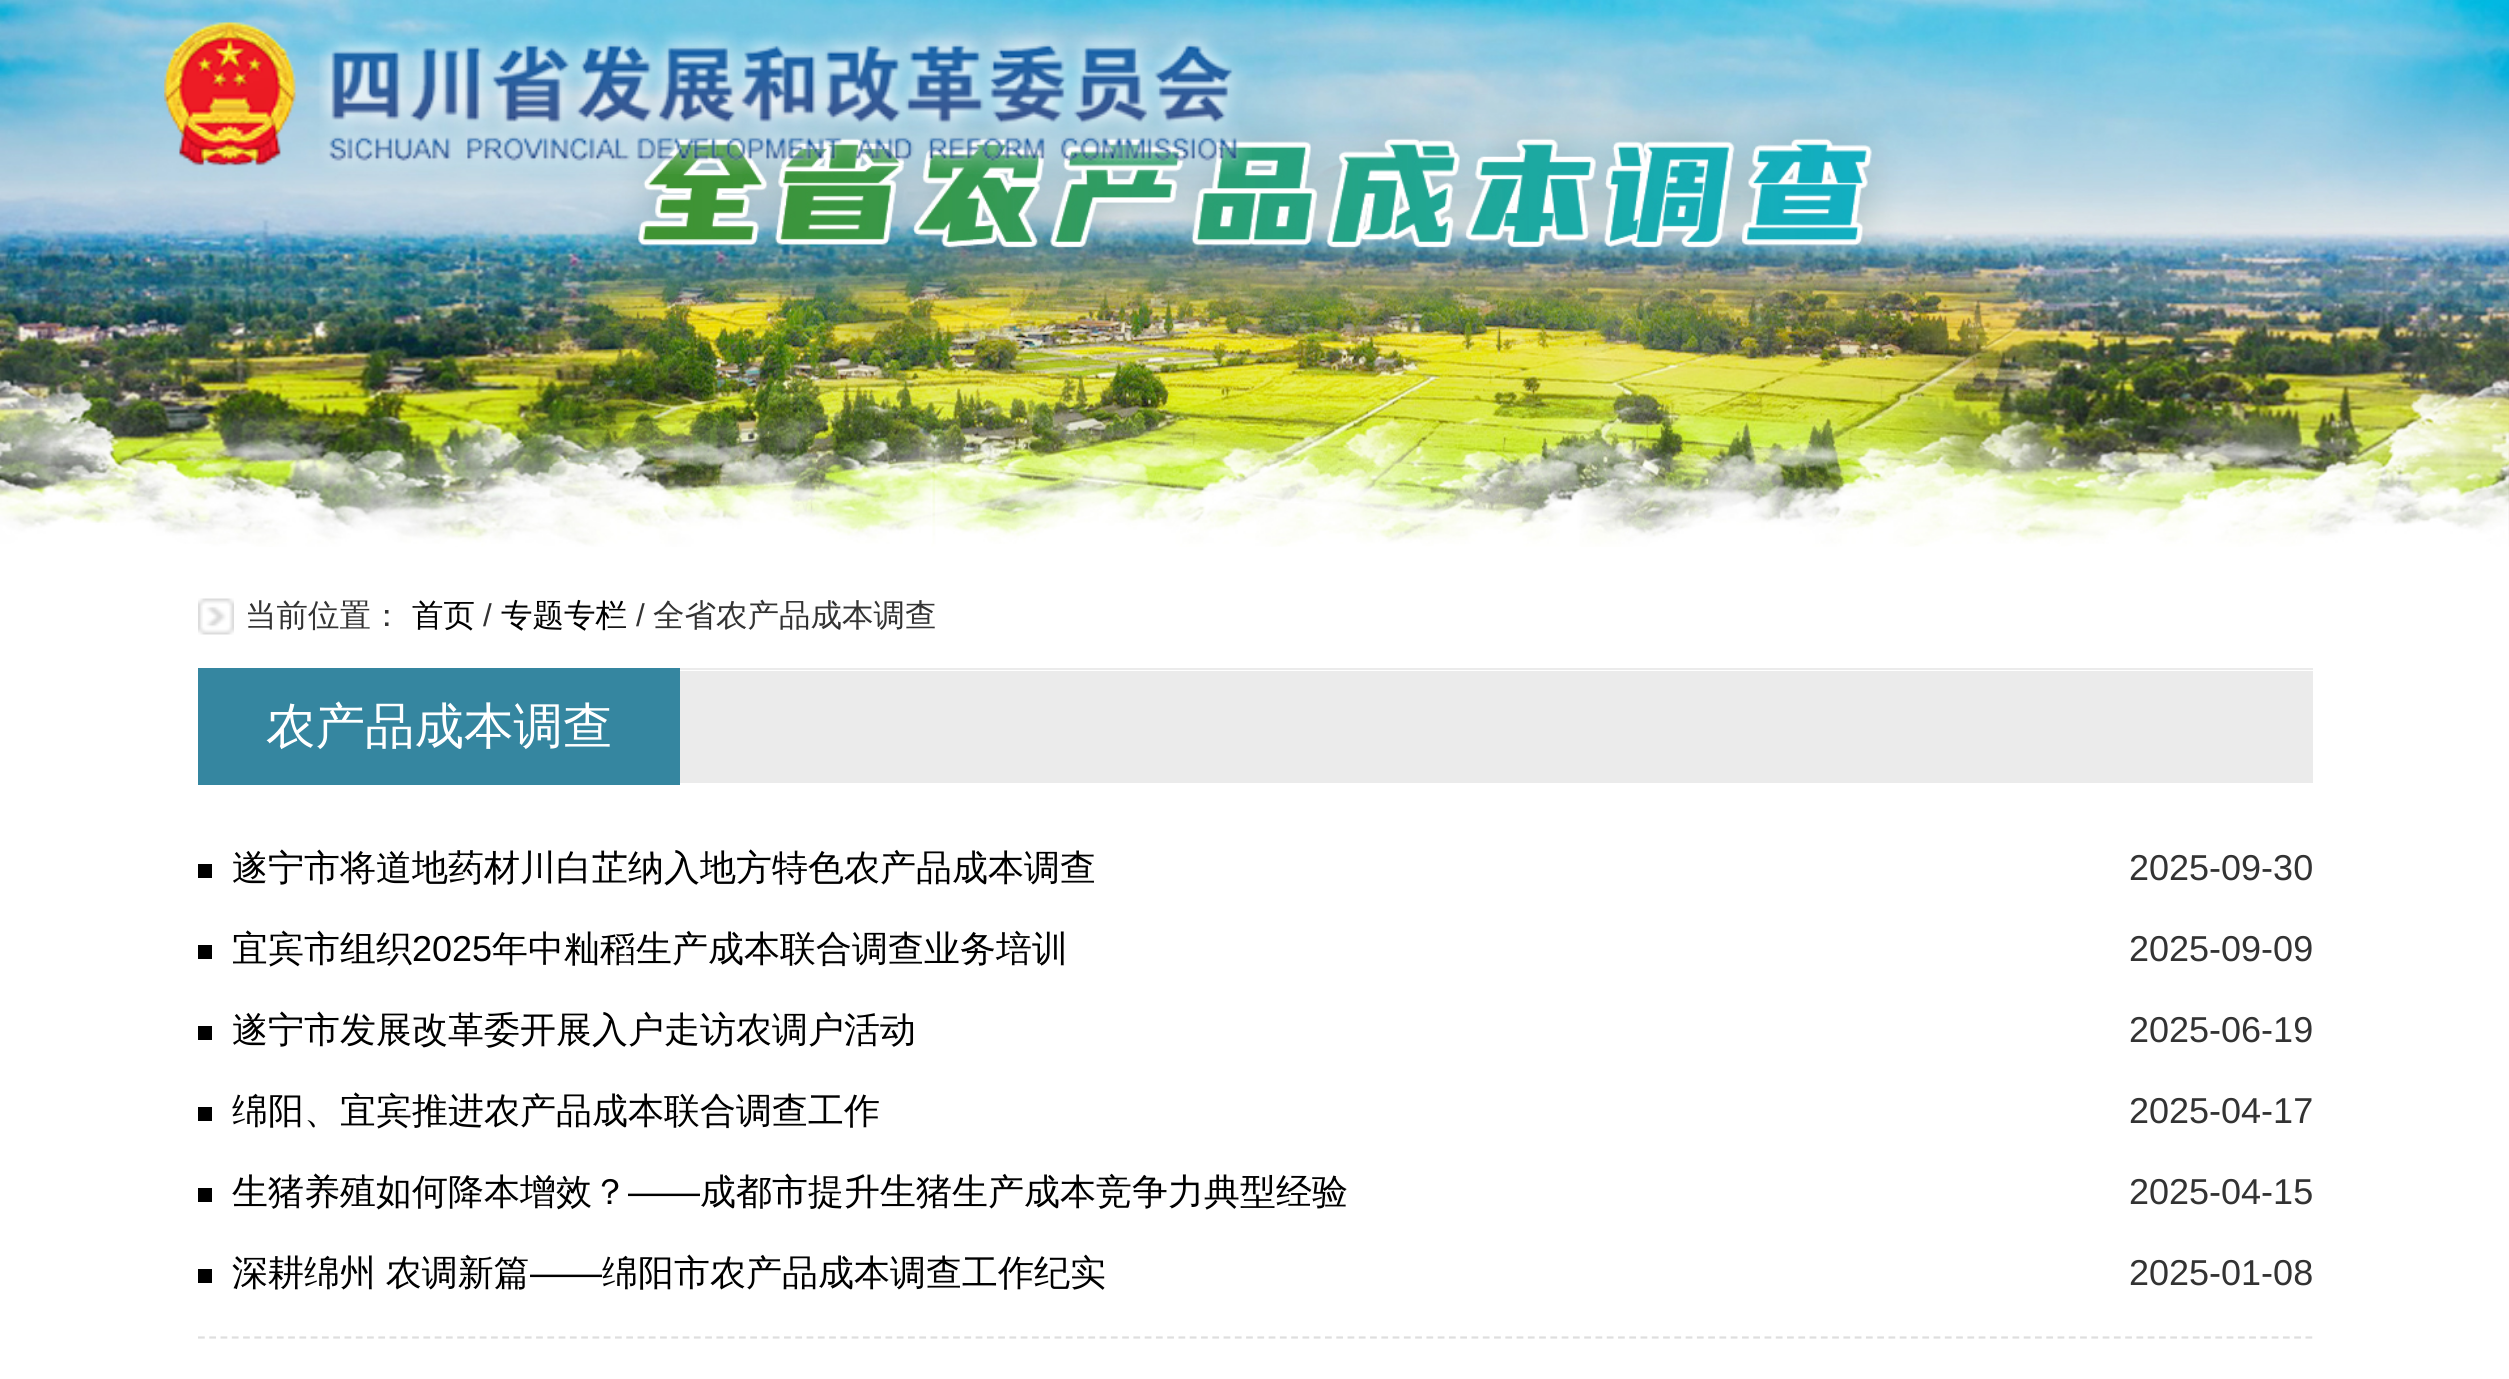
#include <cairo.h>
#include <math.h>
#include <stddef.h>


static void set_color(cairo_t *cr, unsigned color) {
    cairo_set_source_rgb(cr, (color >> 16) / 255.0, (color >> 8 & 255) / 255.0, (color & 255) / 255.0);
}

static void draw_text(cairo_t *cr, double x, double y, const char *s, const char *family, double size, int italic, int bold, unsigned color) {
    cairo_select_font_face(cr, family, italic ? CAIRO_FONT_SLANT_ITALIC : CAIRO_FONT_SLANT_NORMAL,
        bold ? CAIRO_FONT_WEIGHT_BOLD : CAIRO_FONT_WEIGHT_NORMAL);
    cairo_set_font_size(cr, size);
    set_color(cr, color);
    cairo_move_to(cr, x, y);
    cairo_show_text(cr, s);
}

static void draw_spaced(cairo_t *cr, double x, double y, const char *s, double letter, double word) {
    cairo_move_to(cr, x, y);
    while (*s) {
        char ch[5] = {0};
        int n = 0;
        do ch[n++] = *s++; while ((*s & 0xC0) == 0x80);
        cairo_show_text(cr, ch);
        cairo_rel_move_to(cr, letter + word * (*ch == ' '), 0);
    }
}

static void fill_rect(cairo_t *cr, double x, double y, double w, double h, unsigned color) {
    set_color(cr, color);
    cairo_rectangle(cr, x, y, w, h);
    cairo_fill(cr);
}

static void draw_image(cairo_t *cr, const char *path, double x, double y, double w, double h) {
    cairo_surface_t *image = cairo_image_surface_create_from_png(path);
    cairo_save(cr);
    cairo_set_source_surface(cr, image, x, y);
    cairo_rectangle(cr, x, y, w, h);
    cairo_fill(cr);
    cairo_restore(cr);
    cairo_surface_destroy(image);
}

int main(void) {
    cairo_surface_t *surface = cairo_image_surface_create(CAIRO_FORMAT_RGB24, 2509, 1379);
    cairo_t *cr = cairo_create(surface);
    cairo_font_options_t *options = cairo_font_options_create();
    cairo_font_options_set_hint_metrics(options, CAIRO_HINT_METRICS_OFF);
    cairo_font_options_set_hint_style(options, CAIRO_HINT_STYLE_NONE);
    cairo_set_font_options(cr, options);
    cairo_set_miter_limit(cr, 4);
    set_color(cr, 0xFFFFFF);
    cairo_paint(cr);
    draw_image(cr, "assets/img1.png", 0, 0, 2509, 547);
    draw_image(cr, "assets/img2.png", 164, 22, 1088, 152);
    fill_rect(cr, 680, 668, 1633, 2, 0xEBEBEB);
    draw_image(cr, "assets/img3.png", 198, 598, 36, 37);
    draw_text(cr, 245, 626, "当前位置：", "WenQuanYi Zen Hei Medium", 31.5, 0, 0, 0x333333);
    draw_text(cr, 412, 626, "首页", "WenQuanYi Zen Hei Medium", 31.5, 0, 0, 0x000000);
    draw_text(cr, 483, 626, "/", "Liberation Sans", 31.5, 0, 0, 0x333333);
    draw_text(cr, 501, 626, "专题专栏", "WenQuanYi Zen Hei Medium", 31.5, 0, 0, 0x000000);
    draw_text(cr, 636, 626, "/", "Liberation Sans", 31.5, 0, 0, 0x333333);
    draw_text(cr, 653, 626, "全省农产品成本调查", "WenQuanYi Zen Hei Medium", 31.5, 0, 0, 0x333333);
    fill_rect(cr, 680, 671, 1633, 112, 0xEBEBEB);
    fill_rect(cr, 198, 668, 482, 117, 0x3586A0);
    draw_text(cr, 266, 743, "农产品成本调查", "WenQuanYi Zen Hei Medium", 49.5, 0, 0, 0xFFFFFF);
    fill_rect(cr, 198, 864, 14, 14, 0x000000);
    draw_text(cr, 232, 880, "遂宁市将道地药材川白芷纳入地方特色农产品成本调查", "WenQuanYi Zen Hei Medium", 36, 0, 0, 0x000000);
    draw_text(cr, 2129, 880, "2025-09-30", "Liberation Sans", 36, 0, 0, 0x333333);
    fill_rect(cr, 198, 945, 14, 14, 0x000000);
    draw_text(cr, 232, 961, "宜宾市组织", "WenQuanYi Zen Hei Medium", 36, 0, 0, 0x000000);
    draw_text(cr, 412, 961, "2025", "Liberation Sans", 36, 0, 0, 0x000000);
    draw_text(cr, 492, 961, "年中籼稻生产成本联合调查业务培训", "WenQuanYi Zen Hei Medium", 36, 0, 0, 0x000000);
    draw_text(cr, 2129, 961, "2025-09-09", "Liberation Sans", 36, 0, 0, 0x333333);
    fill_rect(cr, 198, 1026, 14, 14, 0x000000);
    draw_text(cr, 232, 1042, "遂宁市发展改革委开展入户走访农调户活动", "WenQuanYi Zen Hei Medium", 36, 0, 0, 0x000000);
    draw_text(cr, 2129, 1042, "2025-06-19", "Liberation Sans", 36, 0, 0, 0x333333);
    fill_rect(cr, 198, 1107, 14, 14, 0x000000);
    draw_text(cr, 232, 1123, "绵阳、宜宾推进农产品成本联合调查工作", "WenQuanYi Zen Hei Medium", 36, 0, 0, 0x000000);
    draw_text(cr, 2129, 1123, "2025-04-17", "Liberation Sans", 36, 0, 0, 0x333333);
    fill_rect(cr, 198, 1188, 14, 14, 0x000000);
    draw_text(cr, 232, 1204, "生猪养殖如何降本增效？", "WenQuanYi Zen Hei Medium", 36, 0, 0, 0x000000);
    draw_text(cr, 628, 1204, "——", "Liberation Sans", 36, 0, 0, 0x000000);
    draw_text(cr, 700, 1204, "成都市提升生猪生产成本竞争力典型经验", "WenQuanYi Zen Hei Medium", 36, 0, 0, 0x000000);
    draw_text(cr, 2129, 1204, "2025-04-15", "Liberation Sans", 36, 0, 0, 0x333333);
    fill_rect(cr, 198, 1269, 14, 14, 0x000000);
    cairo_select_font_face(cr, "WenQuanYi Zen Hei Medium", CAIRO_FONT_SLANT_NORMAL, CAIRO_FONT_WEIGHT_NORMAL);
    draw_spaced(cr, 232, 1285, "深耕绵州 农调新篇", 0, -1);
    draw_text(cr, 530, 1285, "——", "Liberation Sans", 36, 0, 0, 0x000000);
    draw_text(cr, 602, 1285, "绵阳市农产品成本调查工作纪实", "WenQuanYi Zen Hei Medium", 36, 0, 0, 0x000000);
    draw_text(cr, 2129, 1285, "2025-01-08", "Liberation Sans", 36, 0, 0, 0x333333);
    cairo_new_path(cr);
    cairo_move_to(cr, 198, 1337.5);
    cairo_line_to(cr, 2313, 1337.5);
    set_color(cr, 0xDEDEDE);
    cairo_set_line_width(cr, 2.2);
    cairo_set_dash(cr, (double[]){6.75, 4.52}, 2, 0);
    cairo_stroke(cr);
    cairo_surface_write_to_png(surface, "output.png");
    cairo_font_options_destroy(options);
    cairo_destroy(cr);
    cairo_surface_destroy(surface);
    return 0;
}
